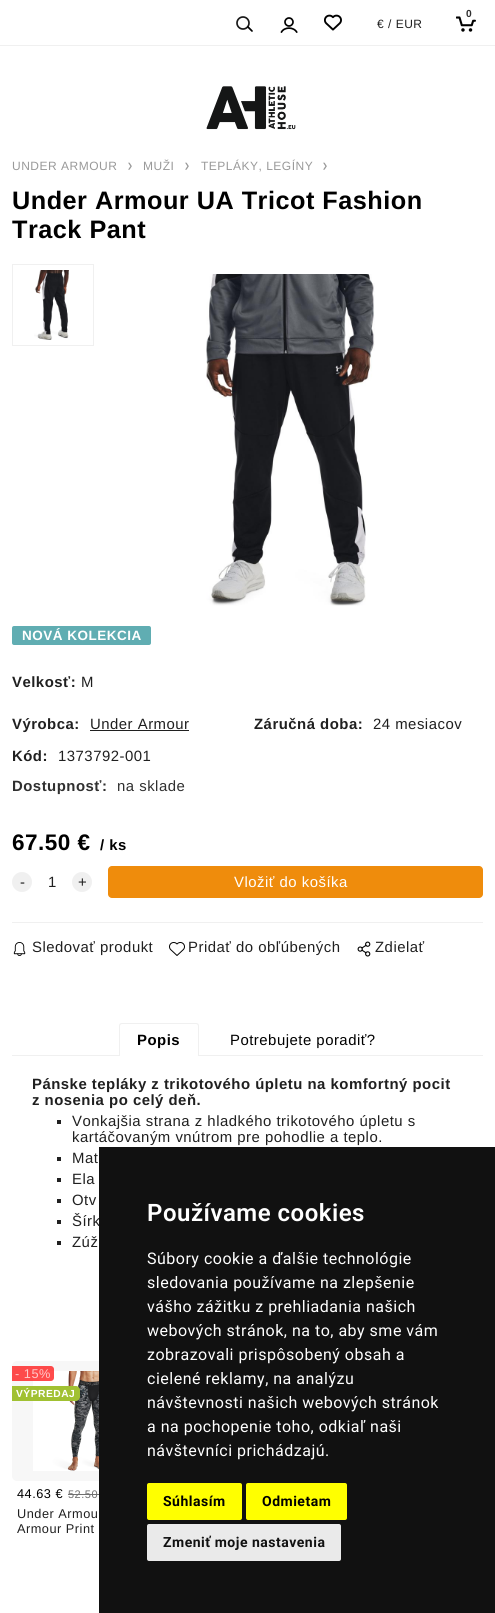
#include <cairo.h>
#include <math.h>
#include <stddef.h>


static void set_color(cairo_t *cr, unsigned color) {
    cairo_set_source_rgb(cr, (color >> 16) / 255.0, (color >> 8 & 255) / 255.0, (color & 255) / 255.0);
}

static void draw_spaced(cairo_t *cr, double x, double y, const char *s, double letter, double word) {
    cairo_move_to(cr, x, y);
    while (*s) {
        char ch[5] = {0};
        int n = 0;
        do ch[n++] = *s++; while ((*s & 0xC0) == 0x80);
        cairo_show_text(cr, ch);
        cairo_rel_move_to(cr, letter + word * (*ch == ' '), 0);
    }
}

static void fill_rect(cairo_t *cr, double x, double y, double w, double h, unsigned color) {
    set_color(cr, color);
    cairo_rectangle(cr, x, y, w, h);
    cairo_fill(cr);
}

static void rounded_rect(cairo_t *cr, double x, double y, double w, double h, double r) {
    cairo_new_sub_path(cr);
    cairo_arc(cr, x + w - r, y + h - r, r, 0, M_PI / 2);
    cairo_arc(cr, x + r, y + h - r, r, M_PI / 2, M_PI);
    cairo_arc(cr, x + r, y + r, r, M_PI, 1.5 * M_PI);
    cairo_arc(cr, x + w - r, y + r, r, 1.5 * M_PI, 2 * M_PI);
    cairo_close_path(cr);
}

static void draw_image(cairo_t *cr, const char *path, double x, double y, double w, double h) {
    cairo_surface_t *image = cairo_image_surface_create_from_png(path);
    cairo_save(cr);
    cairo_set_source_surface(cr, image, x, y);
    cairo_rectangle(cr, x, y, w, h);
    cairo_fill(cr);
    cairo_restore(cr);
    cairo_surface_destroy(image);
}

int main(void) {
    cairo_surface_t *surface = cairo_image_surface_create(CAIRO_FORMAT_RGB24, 495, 1613);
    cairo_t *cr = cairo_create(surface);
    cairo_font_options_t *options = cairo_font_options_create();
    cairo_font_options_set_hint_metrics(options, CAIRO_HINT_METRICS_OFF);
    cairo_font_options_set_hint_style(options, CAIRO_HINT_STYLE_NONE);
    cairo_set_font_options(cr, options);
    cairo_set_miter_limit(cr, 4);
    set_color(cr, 0xFFFFFF);
    cairo_paint(cr);
    fill_rect(cr, 0, 45, 495, 1, 0xF0F0F0);
    cairo_arc(cr, 243, 23, 6, 0, 2 * M_PI);
    set_color(cr, 0x191919);
    cairo_set_line_width(cr, 1.7);
    cairo_stroke(cr);
    cairo_new_path(cr);
    cairo_move_to(cr, 248, 27);
    cairo_line_to(cr, 252, 31);
    set_color(cr, 0x000000);
    cairo_set_line_cap(cr, CAIRO_LINE_CAP_ROUND);
    cairo_stroke(cr);
    draw_image(cr, "assets/img1.png", 280, 17, 18, 16);
    draw_image(cr, "assets/img2.png", 324, 14, 18, 17);
    cairo_select_font_face(cr, "Liberation Sans", CAIRO_FONT_SLANT_NORMAL, CAIRO_FONT_WEIGHT_NORMAL);
    cairo_set_font_size(cr, 12);
    set_color(cr, 0x202020);
    draw_spaced(cr, 377, 28, "€ / EUR", 0.5, 0);
    draw_image(cr, "assets/img3.png", 456, 16, 20, 16);
    cairo_select_font_face(cr, "Liberation Sans", CAIRO_FONT_SLANT_NORMAL, CAIRO_FONT_WEIGHT_BOLD);
    cairo_set_font_size(cr, 10.25);
    set_color(cr, 0x303030);
    draw_spaced(cr, 466, 17, "0", 0.5, 0);
    draw_image(cr, "assets/img4.png", 206, 86, 90, 44);
    cairo_select_font_face(cr, "Liberation Sans", CAIRO_FONT_SLANT_NORMAL, CAIRO_FONT_WEIGHT_NORMAL);
    cairo_set_font_size(cr, 12);
    set_color(cr, 0x999999);
    draw_spaced(cr, 12, 170, "UNDER ARMOUR", 0.5, 0);
    cairo_select_font_face(cr, "DejaVu Sans", CAIRO_FONT_SLANT_NORMAL, CAIRO_FONT_WEIGHT_NORMAL);
    cairo_set_font_size(cr, 7);
    draw_spaced(cr, 127, 168, "❯", 0.5, 0);
    cairo_select_font_face(cr, "Liberation Sans", CAIRO_FONT_SLANT_NORMAL, CAIRO_FONT_WEIGHT_NORMAL);
    cairo_set_font_size(cr, 12);
    draw_spaced(cr, 143, 170, "MUŽI", 0.5, 0);
    cairo_select_font_face(cr, "DejaVu Sans", CAIRO_FONT_SLANT_NORMAL, CAIRO_FONT_WEIGHT_NORMAL);
    cairo_set_font_size(cr, 7);
    draw_spaced(cr, 184, 168, "❯", 0.5, 0);
    cairo_select_font_face(cr, "Liberation Sans", CAIRO_FONT_SLANT_NORMAL, CAIRO_FONT_WEIGHT_NORMAL);
    cairo_set_font_size(cr, 12);
    draw_spaced(cr, 201, 170, "TEPLÁKY, LEGÍNY", 0.5, 0);
    cairo_select_font_face(cr, "DejaVu Sans", CAIRO_FONT_SLANT_NORMAL, CAIRO_FONT_WEIGHT_NORMAL);
    cairo_set_font_size(cr, 7);
    draw_spaced(cr, 322, 168, "❯", 0.5, 0);
    cairo_select_font_face(cr, "Liberation Sans", CAIRO_FONT_SLANT_NORMAL, CAIRO_FONT_WEIGHT_BOLD);
    cairo_set_font_size(cr, 25.25);
    set_color(cr, 0x000000);
    draw_spaced(cr, 12, 209, "Under Armour UA Tricot Fashion", 0.5, 0);
    draw_spaced(cr, 12, 238, "Track Pant", 0.5, 0);
    cairo_rectangle(cr, 12.5, 264.5, 81, 81);
    set_color(cr, 0xF0F0F0);
    cairo_set_line_width(cr, 1);
    cairo_set_line_cap(cr, CAIRO_LINE_CAP_BUTT);
    cairo_stroke(cr);
    draw_image(cr, "assets/img5.png", 34, 270, 35, 70);
    draw_image(cr, "assets/img6.png", 206, 274, 169, 332);
    set_color(cr, 0x60ADB2);
    rounded_rect(cr, 12, 626, 139, 19, 2);
    cairo_fill(cr);
    cairo_set_font_size(cr, 13.5);
    set_color(cr, 0xFFFFFF);
    draw_spaced(cr, 22, 640, "NOVÁ KOLEKCIA", 0.5, 0);
    cairo_set_font_size(cr, 14.9);
    set_color(cr, 0x202020);
    draw_spaced(cr, 12, 687, "Velkosť:", 0.5, 0);
    cairo_select_font_face(cr, "Liberation Sans", CAIRO_FONT_SLANT_NORMAL, CAIRO_FONT_WEIGHT_NORMAL);
    draw_spaced(cr, 81, 687, "M", 0.5, 0);
    cairo_select_font_face(cr, "Liberation Sans", CAIRO_FONT_SLANT_NORMAL, CAIRO_FONT_WEIGHT_BOLD);
    draw_spaced(cr, 12, 729, "Výrobca:", 0.5, 0);
    cairo_select_font_face(cr, "Liberation Sans", CAIRO_FONT_SLANT_NORMAL, CAIRO_FONT_WEIGHT_NORMAL);
    draw_spaced(cr, 90, 729, "Under Armour", 0.5, 0);
    fill_rect(cr, 90, 730, 99, 1, 0x202020);
    cairo_select_font_face(cr, "Liberation Sans", CAIRO_FONT_SLANT_NORMAL, CAIRO_FONT_WEIGHT_BOLD);
    draw_spaced(cr, 254, 729, "Záručná doba:", 0.5, 0);
    cairo_select_font_face(cr, "Liberation Sans", CAIRO_FONT_SLANT_NORMAL, CAIRO_FONT_WEIGHT_NORMAL);
    draw_spaced(cr, 373, 729, "24 mesiacov", 0.5, 0);
    cairo_select_font_face(cr, "Liberation Sans", CAIRO_FONT_SLANT_NORMAL, CAIRO_FONT_WEIGHT_BOLD);
    draw_spaced(cr, 12, 761, "Kód:", 0.5, 0);
    cairo_select_font_face(cr, "Liberation Sans", CAIRO_FONT_SLANT_NORMAL, CAIRO_FONT_WEIGHT_NORMAL);
    draw_spaced(cr, 58, 761, "1373792-001", 0.5, 0);
    cairo_select_font_face(cr, "Liberation Sans", CAIRO_FONT_SLANT_NORMAL, CAIRO_FONT_WEIGHT_BOLD);
    set_color(cr, 0x303030);
    draw_spaced(cr, 12, 791, "Dostupnosť:", 0.5, 0);
    cairo_select_font_face(cr, "Liberation Sans", CAIRO_FONT_SLANT_NORMAL, CAIRO_FONT_WEIGHT_NORMAL);
    draw_spaced(cr, 117, 791, "na sklade", 0.5, 0);
    cairo_select_font_face(cr, "Liberation Sans", CAIRO_FONT_SLANT_NORMAL, CAIRO_FONT_WEIGHT_BOLD);
    cairo_set_font_size(cr, 22.5);
    set_color(cr, 0x000000);
    draw_spaced(cr, 12, 850, "67.50 €", 0.5, 0);
    cairo_set_font_size(cr, 14.9);
    draw_spaced(cr, 100, 850, "/ ks", 0.5, 0);
    set_color(cr, 0xF0F0F0);
    cairo_new_path(cr);
    cairo_arc(cr, 22, 882, 10, 0, 2 * M_PI);
    cairo_fill(cr);
    cairo_select_font_face(cr, "Liberation Sans", CAIRO_FONT_SLANT_NORMAL, CAIRO_FONT_WEIGHT_NORMAL);
    set_color(cr, 0x202020);
    draw_spaced(cr, 20, 887, "-", 0.5, 0);
    draw_spaced(cr, 48, 887, "1", 0.5, 0);
    set_color(cr, 0xF0F0F0);
    cairo_new_path(cr);
    cairo_arc(cr, 82, 882, 10, 0, 2 * M_PI);
    cairo_fill(cr);
    set_color(cr, 0x202020);
    draw_spaced(cr, 78, 887, "+", 0.5, 0);
    set_color(cr, 0xEF8C0C);
    rounded_rect(cr, 108, 866, 375, 32, 4);
    cairo_fill(cr);
    set_color(cr, 0xFFFFFF);
    draw_spaced(cr, 234, 887, "Vložiť do košíka", 0.5, 0);
    fill_rect(cr, 12, 922, 471, 1, 0xF0F0F0);
    draw_image(cr, "assets/img7.png", 13, 942, 13, 14);
    set_color(cr, 0x202020);
    draw_spaced(cr, 32, 952, "Sledovať produkt", 0.5, 0);
    draw_image(cr, "assets/img8.png", 169, 942, 16, 14);
    draw_spaced(cr, 188, 952, "Pridať do obľúbených", 0.5, 0);
    draw_image(cr, "assets/img9.png", 357, 941, 14, 16);
    draw_spaced(cr, 375, 952, "Zdielať", 0.5, 0);
    fill_rect(cr, 12, 1055, 471, 1, 0xF0F0F0);
    set_color(cr, 0xFFFFFF);
    cairo_new_path(cr);
    cairo_move_to(cr, 122, 1023);
    cairo_line_to(cr, 196, 1023);
    cairo_curve_to(cr, 197.5, 1023, 199, 1024.5, 199, 1026);
    cairo_line_to(cr, 199, 1056);
    cairo_line_to(cr, 119, 1056);
    cairo_line_to(cr, 119, 1026);
    cairo_curve_to(cr, 119, 1024.5, 120.5, 1023, 122, 1023);
    cairo_close_path(cr);
    cairo_fill(cr);
    set_color(cr, 0xF0F0F0);
    cairo_set_fill_rule(cr, CAIRO_FILL_RULE_EVEN_ODD);
    cairo_new_path(cr);
    cairo_move_to(cr, 122, 1023);
    cairo_line_to(cr, 196, 1023);
    cairo_curve_to(cr, 198, 1023, 199, 1024, 199, 1026);
    cairo_line_to(cr, 199, 1056);
    cairo_line_to(cr, 119, 1056);
    cairo_line_to(cr, 119, 1026);
    cairo_curve_to(cr, 119, 1024, 120, 1023, 122, 1023);
    cairo_close_path(cr);
    cairo_move_to(cr, 122, 1024);
    cairo_line_to(cr, 196, 1024);
    cairo_curve_to(cr, 197, 1024, 198, 1025, 198, 1026);
    cairo_line_to(cr, 198, 1056);
    cairo_line_to(cr, 120, 1056);
    cairo_line_to(cr, 120, 1026);
    cairo_curve_to(cr, 120, 1025, 121, 1024, 122, 1024);
    cairo_close_path(cr);
    cairo_fill(cr);
    cairo_select_font_face(cr, "Liberation Sans", CAIRO_FONT_SLANT_NORMAL, CAIRO_FONT_WEIGHT_BOLD);
    set_color(cr, 0x000000);
    draw_spaced(cr, 137, 1045, "Popis", 0.5, 0);
    cairo_select_font_face(cr, "Liberation Sans", CAIRO_FONT_SLANT_NORMAL, CAIRO_FONT_WEIGHT_NORMAL);
    draw_spaced(cr, 230, 1045, "Potrebujete poradiť?", 0.5, 0);
    cairo_select_font_face(cr, "Liberation Sans", CAIRO_FONT_SLANT_NORMAL, CAIRO_FONT_WEIGHT_BOLD);
    set_color(cr, 0x202020);
    draw_spaced(cr, 32, 1089, "Pánske tepláky z trikotového úpletu na komfortný pocit", 0.5, 0);
    draw_spaced(cr, 32, 1105, "z nosenia po celý deň.", 0.5, 0);
    fill_rect(cr, 57, 1120, 4, 4, 0x202020);
    cairo_select_font_face(cr, "Liberation Sans", CAIRO_FONT_SLANT_NORMAL, CAIRO_FONT_WEIGHT_NORMAL);
    draw_spaced(cr, 72, 1126, "Vonkajšia strana z hladkého trikotového úpletu s", 0.5, 0);
    draw_spaced(cr, 72, 1142, "kartáčovaným vnútrom pre pohodlie a teplo.", 0.5, 0);
    fill_rect(cr, 57, 1157, 4, 4, 0x202020);
    draw_spaced(cr, 72, 1163, "Mat", 0.5, 0);
    fill_rect(cr, 57, 1178, 4, 4, 0x202020);
    draw_spaced(cr, 72, 1184, "Ela", 0.5, 0);
    fill_rect(cr, 57, 1199, 4, 4, 0x202020);
    draw_spaced(cr, 72, 1205, "Otv", 0.5, 0);
    fill_rect(cr, 57, 1220, 4, 4, 0x202020);
    draw_spaced(cr, 72, 1226, "Šírk", 0.5, 0);
    fill_rect(cr, 57, 1241, 4, 4, 0x202020);
    draw_spaced(cr, 72, 1247, "Zúž", 0.5, 0);
    set_color(cr, 0xF7F7F7);
    rounded_rect(cr, 12, 1361, 141, 120, 5);
    cairo_fill(cr);
    draw_image(cr, "assets/img10.png", 33, 1371, 66, 100);
    cairo_set_source_rgba(cr, 1, 0, 0, 0.7);
    cairo_new_path(cr);
    cairo_move_to(cr, 12, 1366);
    cairo_line_to(cr, 51, 1366);
    cairo_curve_to(cr, 52.5, 1366, 54, 1367.5, 54, 1369);
    cairo_line_to(cr, 54, 1378);
    cairo_curve_to(cr, 54, 1379.5, 52.5, 1381, 51, 1381);
    cairo_line_to(cr, 12, 1381);
    cairo_close_path(cr);
    cairo_fill(cr);
    cairo_set_font_size(cr, 12.75);
    set_color(cr, 0xFFC9C9);
    draw_spaced(cr, 15, 1378, "- 15%", 0.5, 0);
    set_color(cr, 0xA1C132);
    cairo_new_path(cr);
    cairo_move_to(cr, 12, 1386);
    cairo_line_to(cr, 76, 1386);
    cairo_curve_to(cr, 78, 1386, 80, 1388, 80, 1390);
    cairo_line_to(cr, 80, 1397);
    cairo_curve_to(cr, 80, 1399, 78, 1401, 76, 1401);
    cairo_line_to(cr, 12, 1401);
    cairo_close_path(cr);
    cairo_fill(cr);
    cairo_select_font_face(cr, "Liberation Sans", CAIRO_FONT_SLANT_NORMAL, CAIRO_FONT_WEIGHT_BOLD);
    cairo_set_font_size(cr, 10.25);
    set_color(cr, 0xFFFFFF);
    draw_spaced(cr, 16, 1397, "VÝPREDAJ", 0.5, 0);
    cairo_select_font_face(cr, "Liberation Sans", CAIRO_FONT_SLANT_NORMAL, CAIRO_FONT_WEIGHT_NORMAL);
    cairo_set_font_size(cr, 12.75);
    set_color(cr, 0x000000);
    draw_spaced(cr, 17, 1498, "44.63 €", 0.5, 0);
    cairo_set_font_size(cr, 11);
    set_color(cr, 0x707070);
    draw_spaced(cr, 68, 1498, "52.50", 0.5, 0);
    fill_rect(cr, 68, 1494, 39, 1, 0x707070);
    cairo_set_font_size(cr, 12.75);
    set_color(cr, 0x202020);
    draw_spaced(cr, 17, 1518, "Under Armou", 0.5, 0);
    draw_spaced(cr, 17, 1533, "Armour Print", 0.5, 0);
    fill_rect(cr, 99, 1147, 396, 466, 0x111111);
    cairo_select_font_face(cr, "Roboto SemiBold", CAIRO_FONT_SLANT_NORMAL, CAIRO_FONT_WEIGHT_NORMAL);
    cairo_set_font_size(cr, 24);
    set_color(cr, 0xFFFFFF);
    draw_spaced(cr, 147, 1221, "Používame cookies", 0.5, 0);
    cairo_select_font_face(cr, "Roboto", CAIRO_FONT_SLANT_NORMAL, CAIRO_FONT_WEIGHT_NORMAL);
    cairo_set_font_size(cr, 16);
    draw_spaced(cr, 147, 1264, "Súbory cookie a ďalšie technológie", 0.5, 0);
    draw_spaced(cr, 147, 1288, "sledovania používame na zlepšenie", 0.5, 0);
    draw_spaced(cr, 147, 1312, "vášho zážitku z prehliadania našich", 0.5, 0);
    draw_spaced(cr, 147, 1336, "webových stránok, na to, aby sme vám", 0.5, 0);
    draw_spaced(cr, 147, 1360, "zobrazovali prispôsobený obsah a", 0.5, 0);
    draw_spaced(cr, 147, 1384, "cielené reklamy, na analýzu", 0.5, 0);
    draw_spaced(cr, 147, 1408, "návštevnosti našich webových stránok", 0.5, 0);
    draw_spaced(cr, 147, 1432, "a na pochopenie toho, odkiaľ naši", 0.5, 0);
    draw_spaced(cr, 147, 1456, "návštevníci prichádzajú.", 0.5, 0);
    set_color(cr, 0xFFFF00);
    rounded_rect(cr, 147, 1483, 95, 37, 2);
    cairo_fill(cr);
    cairo_select_font_face(cr, "Roboto", CAIRO_FONT_SLANT_NORMAL, CAIRO_FONT_WEIGHT_BOLD);
    cairo_set_font_size(cr, 14);
    set_color(cr, 0x000000);
    draw_spaced(cr, 163, 1506, "Súhlasím", 0.5, 0);
    set_color(cr, 0xFFFF00);
    rounded_rect(cr, 246, 1483, 101, 37, 2);
    cairo_fill(cr);
    set_color(cr, 0x000000);
    draw_spaced(cr, 262, 1506, "Odmietam", 0.5, 0);
    set_color(cr, 0xEAEAEA);
    rounded_rect(cr, 147, 1524, 194, 37, 2);
    cairo_fill(cr);
    set_color(cr, 0x111111);
    draw_spaced(cr, 163, 1547, "Zmeniť moje nastavenia", 0.5, 0);
    cairo_surface_write_to_png(surface, "output.png");
    cairo_font_options_destroy(options);
    cairo_destroy(cr);
    cairo_surface_destroy(surface);
    return 0;
}
